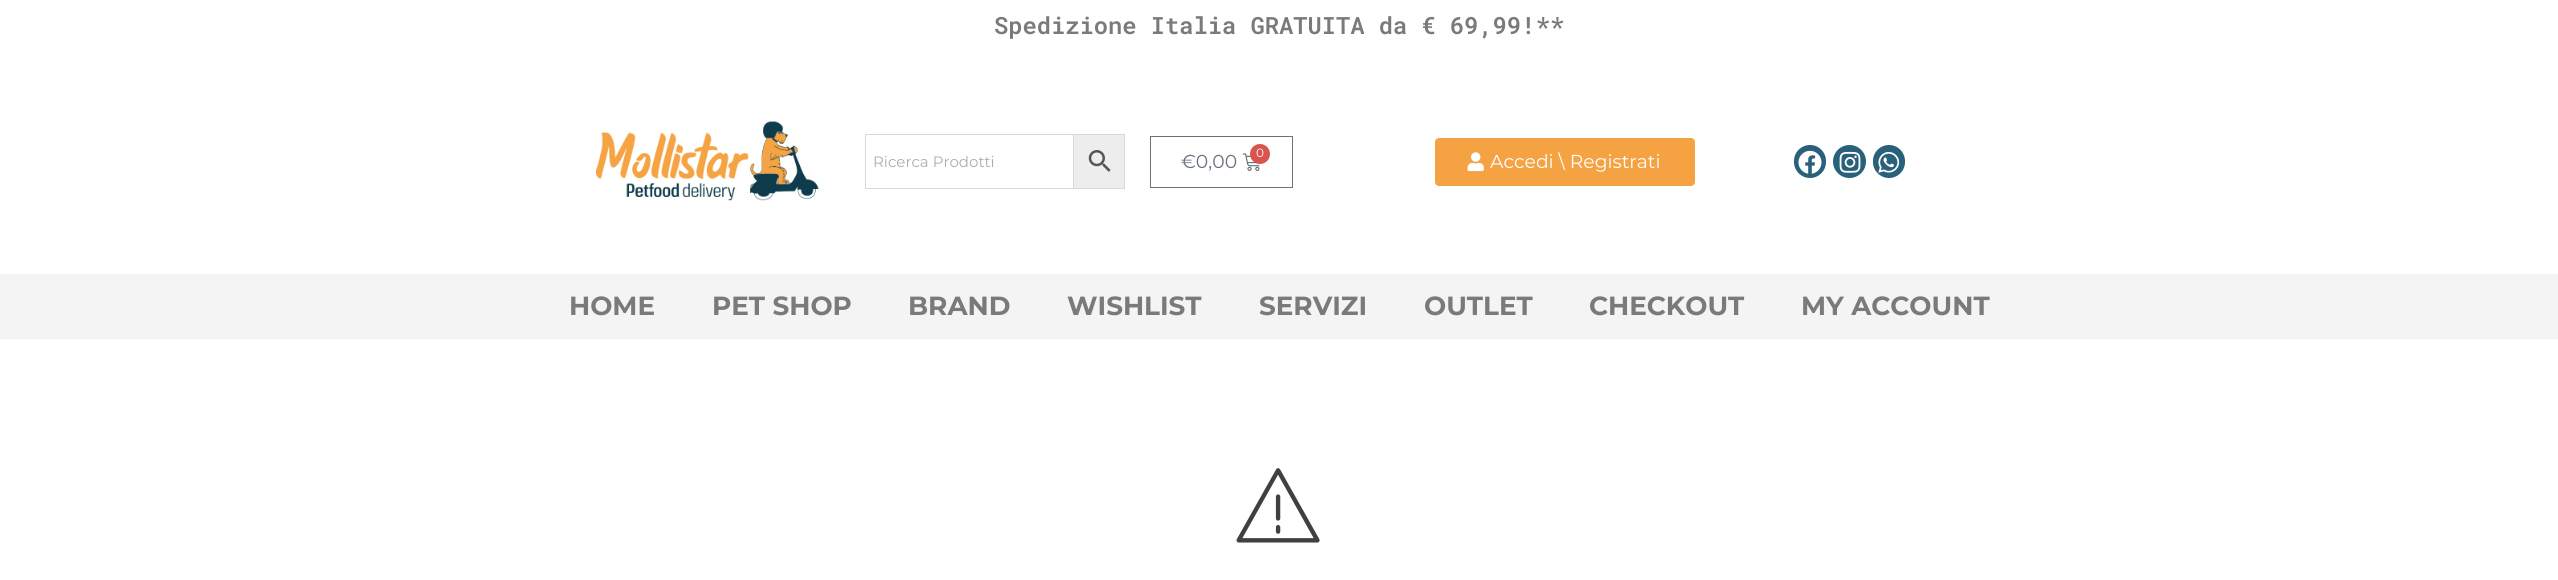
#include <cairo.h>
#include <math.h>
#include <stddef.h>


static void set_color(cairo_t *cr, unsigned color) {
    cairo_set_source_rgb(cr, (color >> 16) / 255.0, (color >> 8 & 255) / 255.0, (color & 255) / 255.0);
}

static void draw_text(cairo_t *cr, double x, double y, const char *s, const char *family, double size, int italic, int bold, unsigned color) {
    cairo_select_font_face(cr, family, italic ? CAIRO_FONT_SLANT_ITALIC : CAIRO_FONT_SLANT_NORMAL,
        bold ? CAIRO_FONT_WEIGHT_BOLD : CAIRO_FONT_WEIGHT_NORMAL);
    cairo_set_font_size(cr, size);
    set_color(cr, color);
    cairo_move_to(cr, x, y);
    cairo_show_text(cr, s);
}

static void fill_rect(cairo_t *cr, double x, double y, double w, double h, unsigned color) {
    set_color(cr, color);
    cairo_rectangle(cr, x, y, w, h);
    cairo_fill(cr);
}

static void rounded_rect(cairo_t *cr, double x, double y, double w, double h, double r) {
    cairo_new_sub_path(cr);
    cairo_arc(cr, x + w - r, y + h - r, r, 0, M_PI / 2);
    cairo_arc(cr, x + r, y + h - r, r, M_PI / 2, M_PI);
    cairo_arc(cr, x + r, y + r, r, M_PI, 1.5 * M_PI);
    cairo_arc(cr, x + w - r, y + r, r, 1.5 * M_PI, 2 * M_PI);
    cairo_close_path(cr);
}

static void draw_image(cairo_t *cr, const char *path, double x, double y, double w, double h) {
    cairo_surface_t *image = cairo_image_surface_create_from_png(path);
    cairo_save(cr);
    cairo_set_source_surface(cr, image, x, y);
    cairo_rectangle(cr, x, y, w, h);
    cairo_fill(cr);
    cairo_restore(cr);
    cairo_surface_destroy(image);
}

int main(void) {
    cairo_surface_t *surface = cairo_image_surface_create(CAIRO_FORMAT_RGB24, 2558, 580);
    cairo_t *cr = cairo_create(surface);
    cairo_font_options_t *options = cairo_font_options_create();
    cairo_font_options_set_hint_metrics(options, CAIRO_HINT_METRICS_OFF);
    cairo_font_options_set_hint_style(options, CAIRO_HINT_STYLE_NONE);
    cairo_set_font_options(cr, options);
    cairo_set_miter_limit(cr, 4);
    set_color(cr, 0xFFFFFF);
    cairo_paint(cr);
    draw_text(cr, 994, 34, "Spedizione Italia GRATUITA da € 69,99!**", "Roboto Mono SemiBold", 23.75, 0, 0, 0x7A7A7A);
    draw_image(cr, "assets/img1.png", 596, 121, 223, 80);
    set_color(cr, 0xEDEDED);
    cairo_rectangle(cr, 1073.5, 134.5, 51, 54);
    cairo_fill_preserve(cr);
    set_color(cr, 0xD8D8D8);
    cairo_set_line_width(cr, 1);
    cairo_stroke(cr);
    cairo_rectangle(cr, 865.5, 134.5, 208, 54);
    cairo_stroke(cr);
    draw_text(cr, 873, 167, "Ricerca Prodotti", "Montserrat", 15, 0, 0, 0xADADAD);
    draw_image(cr, "assets/img2.png", 1088, 150, 23, 22);
    cairo_rectangle(cr, 1150.5, 136.5, 142, 51);
    set_color(cr, 0x69727D);
    cairo_stroke(cr);
    draw_image(cr, "assets/img3.png", 1242, 153, 18, 18);
    set_color(cr, 0xD9534F);
    cairo_arc(cr, 1260, 154, 10, 0, 2 * M_PI);
    cairo_fill(cr);
    draw_text(cr, 1256, 157, "0", "Montserrat", 12, 0, 0, 0xFFFFFF);
    draw_text(cr, 1181, 168, "€0,00", "Montserrat", 18.75, 0, 0, 0x69727D);
    set_color(cr, 0xF5A243);
    rounded_rect(cr, 1435, 138, 260, 48, 4);
    cairo_fill(cr);
    draw_image(cr, "assets/img4.png", 1467, 152, 17, 20);
    draw_text(cr, 1490, 168, "Accedi \\ Registrati", "Montserrat", 18.75, 0, 0, 0xFFFFFF);
    set_color(cr, 0x29607A);
    rounded_rect(cr, 1794, 145, 32, 33, 16);
    cairo_fill(cr);
    draw_image(cr, "assets/img5.png", 1798, 150, 24, 24);
    cairo_arc(cr, 1849.5, 161.5, 16.5, 0, 2 * M_PI);
    cairo_fill(cr);
    draw_image(cr, "assets/img6.png", 1839, 151, 22, 22);
    rounded_rect(cr, 1873, 145, 32, 33, 16);
    cairo_fill(cr);
    draw_image(cr, "assets/img7.png", 1878, 151, 22, 22);
    fill_rect(cr, 0, 274, 2558, 65, 0xF4F4F4);
    draw_text(cr, 569, 315, "HOME", "Montserrat", 26.25, 0, 1, 0x7A7A7A);
    draw_text(cr, 712, 315, "PET SHOP", "Montserrat", 26.25, 0, 1, 0x7A7A7A);
    draw_text(cr, 908, 315, "BRAND", "Montserrat", 26.25, 0, 1, 0x7A7A7A);
    draw_text(cr, 1067, 315, "WISHLIST", "Montserrat", 26.25, 0, 1, 0x7A7A7A);
    draw_text(cr, 1259, 315, "SERVIZI", "Montserrat", 26.25, 0, 1, 0x7A7A7A);
    draw_text(cr, 1424, 315, "OUTLET", "Montserrat", 26.25, 0, 1, 0x7A7A7A);
    draw_text(cr, 1589, 315, "CHECKOUT", "Montserrat", 26.25, 0, 1, 0x7A7A7A);
    draw_text(cr, 1801, 315, "MY ACCOUNT", "Montserrat", 26.25, 0, 1, 0x7A7A7A);
    draw_image(cr, "assets/img8.png", 1236, 468, 84, 75);
    cairo_surface_write_to_png(surface, "output.png");
    cairo_font_options_destroy(options);
    cairo_destroy(cr);
    cairo_surface_destroy(surface);
    return 0;
}
